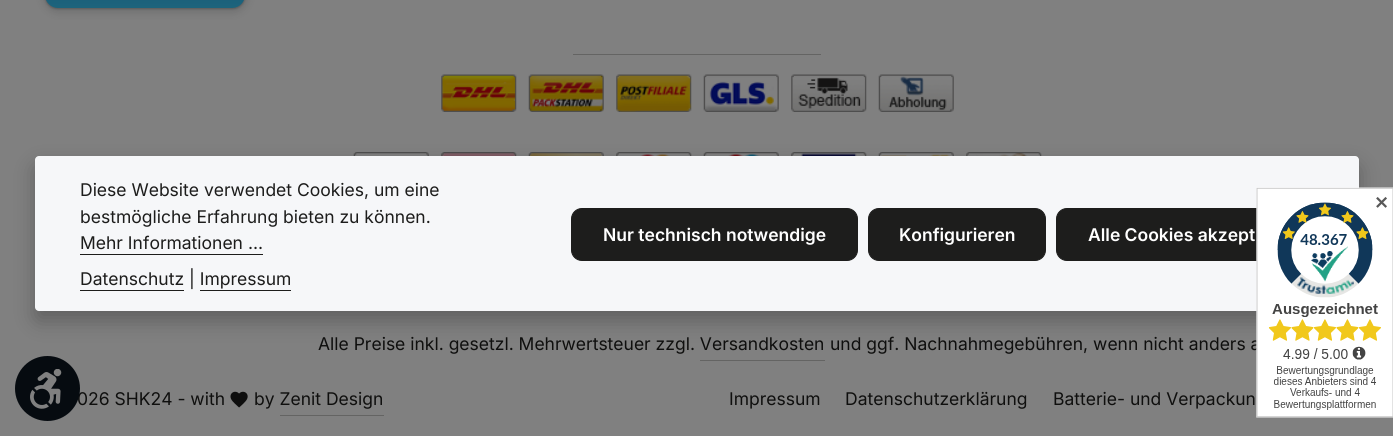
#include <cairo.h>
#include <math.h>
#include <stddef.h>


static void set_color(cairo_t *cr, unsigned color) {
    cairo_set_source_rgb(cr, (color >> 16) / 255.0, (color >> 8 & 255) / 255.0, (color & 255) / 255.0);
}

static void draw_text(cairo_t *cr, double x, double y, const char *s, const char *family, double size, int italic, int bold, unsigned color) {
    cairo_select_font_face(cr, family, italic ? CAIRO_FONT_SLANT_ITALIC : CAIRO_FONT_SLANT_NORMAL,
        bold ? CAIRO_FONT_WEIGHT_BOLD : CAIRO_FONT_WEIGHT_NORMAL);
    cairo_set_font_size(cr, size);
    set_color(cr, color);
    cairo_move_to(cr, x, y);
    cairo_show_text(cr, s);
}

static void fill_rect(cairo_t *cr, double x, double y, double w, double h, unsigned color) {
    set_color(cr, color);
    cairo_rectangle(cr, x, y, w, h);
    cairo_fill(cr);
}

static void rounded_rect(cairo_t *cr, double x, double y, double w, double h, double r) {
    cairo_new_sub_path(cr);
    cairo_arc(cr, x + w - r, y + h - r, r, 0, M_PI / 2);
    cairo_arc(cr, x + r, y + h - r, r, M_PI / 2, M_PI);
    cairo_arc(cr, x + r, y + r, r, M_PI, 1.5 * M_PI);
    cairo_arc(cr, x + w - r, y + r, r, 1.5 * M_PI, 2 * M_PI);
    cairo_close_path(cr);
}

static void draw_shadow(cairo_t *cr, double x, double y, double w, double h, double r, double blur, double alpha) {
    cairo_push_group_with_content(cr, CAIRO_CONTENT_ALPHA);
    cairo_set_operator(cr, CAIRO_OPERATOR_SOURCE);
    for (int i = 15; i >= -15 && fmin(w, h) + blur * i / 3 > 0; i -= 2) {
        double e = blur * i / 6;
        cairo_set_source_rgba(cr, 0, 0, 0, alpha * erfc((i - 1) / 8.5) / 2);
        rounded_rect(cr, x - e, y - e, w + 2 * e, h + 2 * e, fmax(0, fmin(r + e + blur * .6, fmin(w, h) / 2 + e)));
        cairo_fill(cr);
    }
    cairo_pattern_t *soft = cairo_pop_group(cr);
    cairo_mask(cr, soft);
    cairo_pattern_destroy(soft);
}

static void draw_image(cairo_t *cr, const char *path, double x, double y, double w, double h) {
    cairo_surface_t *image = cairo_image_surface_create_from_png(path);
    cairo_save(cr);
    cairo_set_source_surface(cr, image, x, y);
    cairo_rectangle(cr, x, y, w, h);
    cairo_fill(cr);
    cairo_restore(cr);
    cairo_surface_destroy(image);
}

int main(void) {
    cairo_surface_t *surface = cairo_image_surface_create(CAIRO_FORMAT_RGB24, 1393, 436);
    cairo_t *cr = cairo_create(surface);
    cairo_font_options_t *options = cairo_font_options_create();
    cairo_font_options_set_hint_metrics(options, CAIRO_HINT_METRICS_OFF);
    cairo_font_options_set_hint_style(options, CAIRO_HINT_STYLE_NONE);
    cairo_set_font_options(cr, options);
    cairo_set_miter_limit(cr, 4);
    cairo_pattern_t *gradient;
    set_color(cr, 0x808080);
    cairo_paint(cr);
    draw_image(cr, "assets/img9.png", 353, 152, 76, 4);
    draw_image(cr, "assets/img10.png", 441, 152, 76, 4);
    draw_image(cr, "assets/img11.png", 528, 152, 76, 4);
    draw_image(cr, "assets/img12.png", 616, 152, 76, 4);
    draw_image(cr, "assets/img13.png", 703, 152, 76, 4);
    draw_image(cr, "assets/img14.png", 791, 152, 76, 4);
    draw_image(cr, "assets/img15.png", 878, 152, 76, 4);
    draw_image(cr, "assets/img16.png", 966, 152, 76, 4);
    set_color(cr, 0x000000);
    draw_shadow(cr, 35, 166, 1324, 155, 4, 10, 0.25);
    set_color(cr, 0xF6F7F9);
    rounded_rect(cr, 35, 156, 1324, 155, 4);
    cairo_fill(cr);
    draw_text(cr, 80, 196, "Diese Website verwendet Cookies, um eine", "Inter", 17.5, 0, 0, 0x1D1D1C);
    draw_text(cr, 80, 223, "bestmögliche Erfahrung bieten zu können.", "Inter", 17.5, 0, 0, 0x1D1D1C);
    draw_text(cr, 80, 249, "Mehr Informationen ...", "Inter", 17.5, 0, 0, 0x1D1D1C);
    fill_rect(cr, 80, 254, 183, 1, 0x1D1D1C);
    draw_text(cr, 80, 285, "Datenschutz | Impressum", "Inter", 17.5, 0, 0, 0x1D1D1C);
    fill_rect(cr, 80, 290, 104, 1, 0x1D1D1C);
    fill_rect(cr, 200, 290, 91, 1, 0x1D1D1C);
    rounded_rect(cr, 571.5, 208.5, 286, 52, 10.5);
    cairo_fill_preserve(cr);
    cairo_set_line_width(cr, 1);
    cairo_stroke(cr);
    draw_text(cr, 603, 241, "Nur technisch notwendige", "Inter SemiBold", 17.5, 0, 0, 0xFFFFFF);
    set_color(cr, 0x1D1D1C);
    rounded_rect(cr, 868.5, 208.5, 177, 52, 10.5);
    cairo_fill_preserve(cr);
    cairo_stroke(cr);
    draw_text(cr, 899, 241, "Konfigurieren", "Inter SemiBold", 17.5, 0, 0, 0xFFFFFF);
    set_color(cr, 0x1D1D1C);
    rounded_rect(cr, 1056.5, 208.5, 272, 52, 10.5);
    cairo_fill_preserve(cr);
    cairo_stroke(cr);
    draw_text(cr, 1088, 241, "Alle Cookies akzept", "Inter SemiBold", 17.5, 0, 0, 0xFFFFFF);
    draw_text(cr, 830, 350, "und ggf. Nachnahmegebühren, wenn nicht anders a", "Inter", 17.5, 0, 0, 0x0F0F0E);
    draw_image(cr, "assets/img1.png", 1256, 187, 137, 231);
    draw_text(cr, 1374, 209, "✕", "DejaVu Sans", 17.5, 0, 1, 0x595959);
    draw_text(cr, 77, 405, "026 SHK24 - with", "Inter", 17.5, 0, 0, 0x0F0F0E);
    set_color(cr, 0x060B10);
    cairo_new_path(cr);
    cairo_arc(cr, 47.5, 388.5, 32.5, 0, 2 * M_PI);
    cairo_fill(cr);
    draw_image(cr, "assets/img2.png", 30, 369, 32, 40);
    set_color(cr, 0x1E2022);
    draw_shadow(cr, 43, -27, 205, 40, 15, 4, 0.15);
    draw_shadow(cr, 45, -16, 200, 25, 13, 1, 0.3);
    gradient = cairo_pattern_create_linear(145, -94, 145, 7.5);
    cairo_pattern_add_color_stop_rgba(gradient, 0, 0.051, 0.243, 0.451, 1);
    cairo_pattern_add_color_stop_rgba(gradient, 1, 0.114, 0.392, 0.486, 1);
    cairo_set_source(cr, gradient);
    cairo_pattern_destroy(gradient);
    rounded_rect(cr, 45, -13, 200, 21, 13);
    cairo_fill(cr);
    fill_rect(cr, 573, 54, 248, 1, 0x646463);
    draw_image(cr, "assets/img3.png", 441, 74, 76, 38);
    draw_image(cr, "assets/img4.png", 528, 74, 76, 38);
    draw_image(cr, "assets/img5.png", 616, 74, 76, 38);
    draw_image(cr, "assets/img6.png", 703, 74, 76, 38);
    draw_image(cr, "assets/img7.png", 791, 74, 76, 38);
    draw_image(cr, "assets/img8.png", 878, 74, 76, 38);
    draw_text(cr, 318, 350, "Alle Preise inkl. gesetzl. Mehrwertsteuer zzgl. Versandkosten", "Inter", 17.5, 0, 0, 0x0F0F0E);
    fill_rect(cr, 700, 360, 125, 1, 0x646463);
    draw_image(cr, "assets/img17.png", 230, 391, 18, 17);
    draw_text(cr, 254, 405, "by Zenit Design", "Inter", 17.5, 0, 0, 0x0F0F0E);
    fill_rect(cr, 280, 415, 104, 1, 0x646463);
    draw_text(cr, 729, 405, "Impressum", "Inter", 17.5, 0, 0, 0x0F0F0E);
    draw_text(cr, 845, 405, "Datenschutzerklärung", "Inter", 17.5, 0, 0, 0x0F0F0E);
    draw_text(cr, 1053, 405, "Batterie- und Verpackun", "Inter", 17.5, 0, 0, 0x0F0F0E);
    cairo_surface_write_to_png(surface, "output.png");
    cairo_font_options_destroy(options);
    cairo_destroy(cr);
    cairo_surface_destroy(surface);
    return 0;
}
